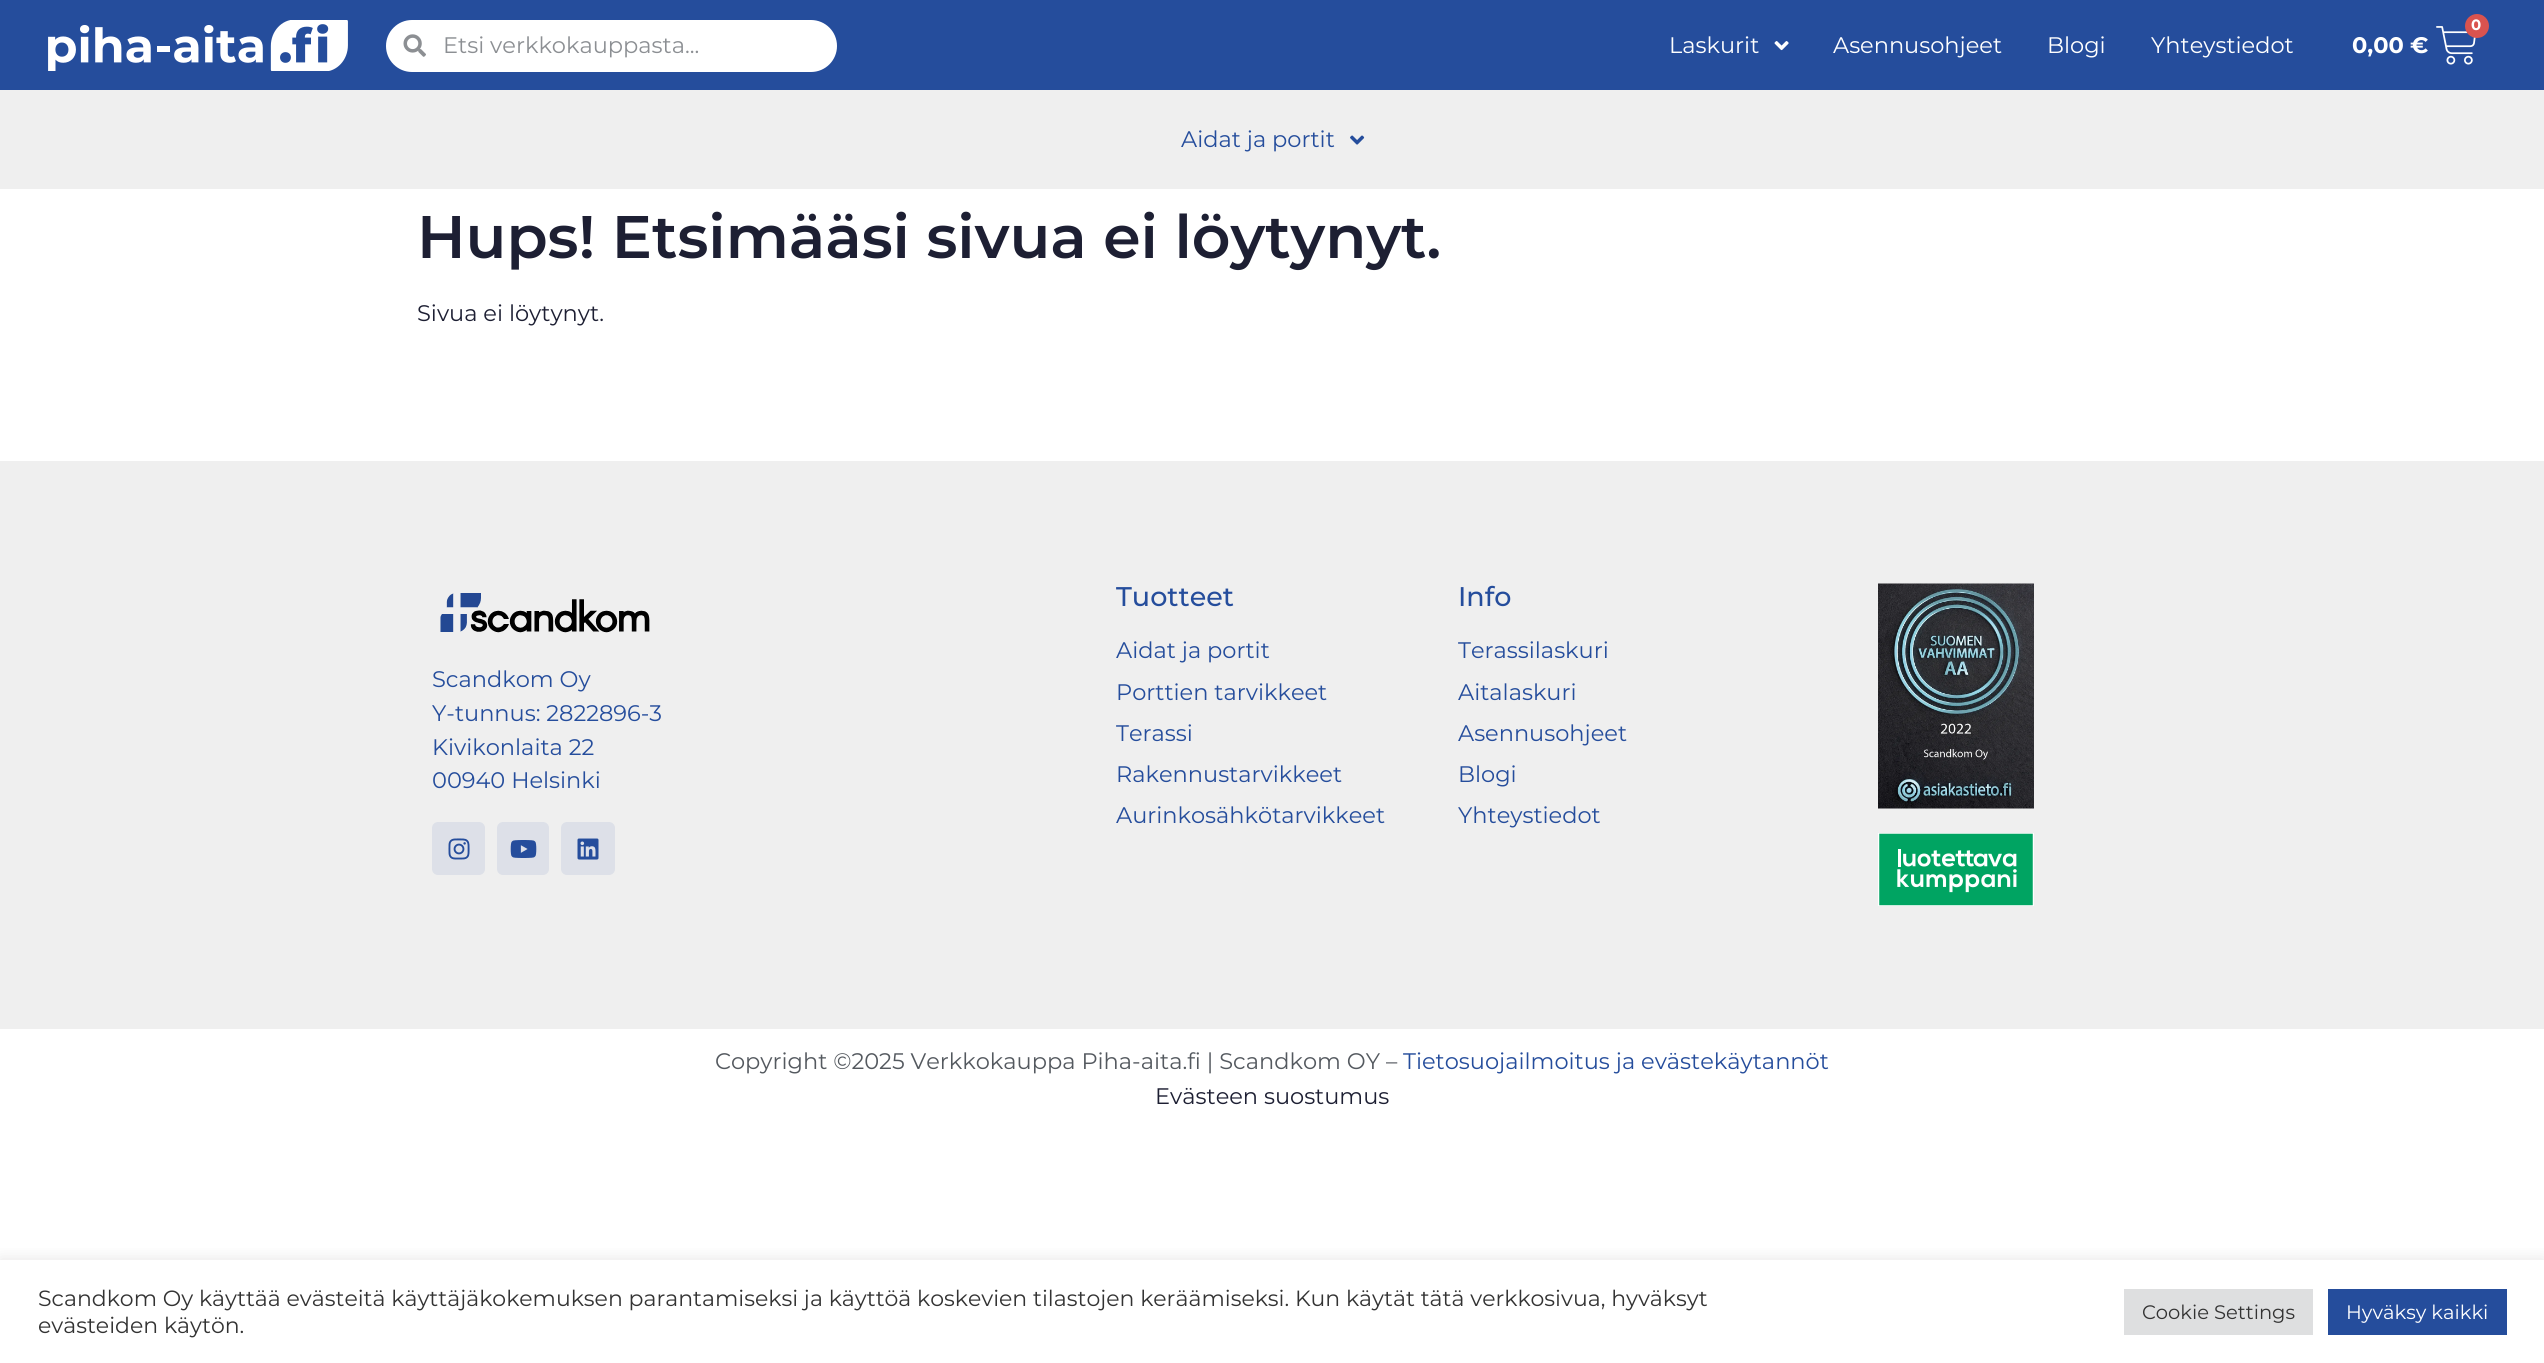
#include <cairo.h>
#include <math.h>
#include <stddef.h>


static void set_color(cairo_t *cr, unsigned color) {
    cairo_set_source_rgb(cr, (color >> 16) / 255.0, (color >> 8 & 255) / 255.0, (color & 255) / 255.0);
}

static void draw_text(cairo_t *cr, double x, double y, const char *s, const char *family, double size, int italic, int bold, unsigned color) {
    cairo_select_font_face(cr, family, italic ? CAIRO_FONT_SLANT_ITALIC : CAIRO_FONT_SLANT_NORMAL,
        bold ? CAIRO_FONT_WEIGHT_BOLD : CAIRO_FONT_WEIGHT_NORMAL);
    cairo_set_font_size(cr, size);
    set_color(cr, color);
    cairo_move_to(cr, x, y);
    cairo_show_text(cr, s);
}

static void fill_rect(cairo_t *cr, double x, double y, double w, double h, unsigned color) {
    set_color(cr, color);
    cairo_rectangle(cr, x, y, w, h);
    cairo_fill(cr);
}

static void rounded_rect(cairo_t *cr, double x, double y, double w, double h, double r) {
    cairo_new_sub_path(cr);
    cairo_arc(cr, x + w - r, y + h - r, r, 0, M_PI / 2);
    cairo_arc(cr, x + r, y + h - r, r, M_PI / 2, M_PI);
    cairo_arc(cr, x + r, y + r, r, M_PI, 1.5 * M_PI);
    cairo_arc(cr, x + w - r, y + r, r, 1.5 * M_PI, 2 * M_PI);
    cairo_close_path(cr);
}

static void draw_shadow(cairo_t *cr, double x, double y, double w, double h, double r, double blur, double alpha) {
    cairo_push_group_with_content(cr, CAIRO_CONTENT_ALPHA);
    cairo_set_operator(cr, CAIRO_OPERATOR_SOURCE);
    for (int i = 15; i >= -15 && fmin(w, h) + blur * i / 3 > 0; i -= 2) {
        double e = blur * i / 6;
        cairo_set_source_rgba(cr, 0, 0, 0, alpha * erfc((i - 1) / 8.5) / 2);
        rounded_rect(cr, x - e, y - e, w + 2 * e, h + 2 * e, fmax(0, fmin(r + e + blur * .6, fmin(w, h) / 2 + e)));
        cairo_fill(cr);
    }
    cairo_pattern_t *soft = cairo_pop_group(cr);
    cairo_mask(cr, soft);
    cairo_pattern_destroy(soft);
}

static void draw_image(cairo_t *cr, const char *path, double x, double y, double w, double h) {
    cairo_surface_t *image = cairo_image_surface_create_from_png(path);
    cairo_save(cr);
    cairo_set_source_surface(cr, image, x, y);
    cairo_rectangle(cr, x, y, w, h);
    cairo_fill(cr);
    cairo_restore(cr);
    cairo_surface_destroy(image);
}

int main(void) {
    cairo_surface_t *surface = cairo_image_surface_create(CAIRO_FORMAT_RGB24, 2544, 1363);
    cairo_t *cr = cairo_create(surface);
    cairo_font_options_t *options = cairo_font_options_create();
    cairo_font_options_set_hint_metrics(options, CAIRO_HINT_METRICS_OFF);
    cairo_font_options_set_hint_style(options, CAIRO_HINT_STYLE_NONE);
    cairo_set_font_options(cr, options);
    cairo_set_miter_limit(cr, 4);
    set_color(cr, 0xFFFFFF);
    cairo_paint(cr);
    fill_rect(cr, 0, 0, 2544, 90, 0x254D9C);
    draw_image(cr, "assets/img1.png", 48, 20, 300, 51);
    set_color(cr, 0xFFFFFF);
    rounded_rect(cr, 386, 20, 451, 52, 26);
    cairo_fill(cr);
    draw_image(cr, "assets/img2.png", 403, 34, 23, 23);
    draw_text(cr, 443, 53, "Etsi verkkokauppasta...", "Montserrat", 22.5, 0, 0, 0x8C8F93);
    draw_text(cr, 1669, 53, "Laskurit", "Montserrat", 22.5, 0, 0, 0xFFFFFF);
    draw_image(cr, "assets/img3.png", 1774, 41, 15, 10);
    draw_text(cr, 1833, 53, "Asennusohjeet", "Montserrat", 22.5, 0, 0, 0xFFFFFF);
    draw_text(cr, 2047, 53, "Blogi", "Montserrat", 22.5, 0, 0, 0xFFFFFF);
    draw_text(cr, 2151, 53, "Yhteystiedot", "Montserrat", 22.5, 0, 0, 0xFFFFFF);
    draw_image(cr, "assets/img4.png", 2436, 26, 40, 39);
    set_color(cr, 0xD9534F);
    cairo_arc(cr, 2477, 26, 12, 0, 2 * M_PI);
    cairo_fill(cr);
    draw_text(cr, 2471, 30, "0", "Montserrat", 15, 0, 1, 0xFFFFFF);
    draw_text(cr, 2352, 53, "0,00 €", "Montserrat", 22.5, 0, 1, 0xFFFFFF);
    fill_rect(cr, 0, 90, 2544, 99, 0xEFEFEF);
    draw_text(cr, 1181, 147, "Aidat ja portit", "Montserrat", 22.5, 0, 0, 0x254D9C);
    draw_image(cr, "assets/img5.png", 1350, 135, 15, 10);
    draw_text(cr, 417, 258, "Hups! Etsimääsi sivua ei löytynyt.", "Montserrat SemiBold", 60, 0, 0, 0x1D1F33);
    draw_text(cr, 417, 321, "Sivua ei löytynyt.", "Montserrat", 22.5, 0, 0, 0x1D1F33);
    fill_rect(cr, 0, 461, 2544, 568, 0xEFEFEF);
    draw_image(cr, "assets/img6.png", 440, 593, 210, 40);
    draw_text(cr, 432, 687, "Scandkom Oy", "Montserrat", 22.5, 0, 0, 0x254D9C);
    draw_text(cr, 432, 721, "Y-tunnus: 2822896-3", "Montserrat", 22.5, 0, 0, 0x254D9C);
    draw_text(cr, 432, 755, "Kivikonlaita 22", "Montserrat", 22.5, 0, 0, 0x254D9C);
    draw_text(cr, 432, 788, "00940 Helsinki", "Montserrat", 22.5, 0, 0, 0x254D9C);
    set_color(cr, 0xDDE0E8);
    rounded_rect(cr, 432, 822, 53, 53, 6);
    cairo_fill(cr);
    draw_image(cr, "assets/img7.png", 448, 838, 22, 22);
    rounded_rect(cr, 497, 822, 52, 53, 6);
    cairo_fill(cr);
    draw_image(cr, "assets/img8.png", 510, 840, 27, 18);
    rounded_rect(cr, 561, 822, 54, 53, 6);
    cairo_fill(cr);
    draw_image(cr, "assets/img9.png", 577, 838, 22, 22);
    draw_text(cr, 1116, 606, "Tuotteet", "Montserrat Medium", 27, 0, 0, 0x254D9C);
    draw_text(cr, 1116, 658, "Aidat ja portit", "Montserrat", 22.5, 0, 0, 0x254D9C);
    draw_text(cr, 1116, 700, "Porttien tarvikkeet", "Montserrat", 22.5, 0, 0, 0x254D9C);
    draw_text(cr, 1116, 741, "Terassi", "Montserrat", 22.5, 0, 0, 0x254D9C);
    draw_text(cr, 1116, 782, "Rakennustarvikkeet", "Montserrat", 22.5, 0, 0, 0x254D9C);
    draw_text(cr, 1116, 823, "Aurinkosähkötarvikkeet", "Montserrat", 22.5, 0, 0, 0x254D9C);
    draw_text(cr, 1458, 606, "Info", "Montserrat Medium", 27, 0, 0, 0x254D9C);
    draw_text(cr, 1458, 658, "Terassilaskuri", "Montserrat", 22.5, 0, 0, 0x254D9C);
    draw_text(cr, 1458, 700, "Aitalaskuri", "Montserrat", 22.5, 0, 0, 0x254D9C);
    draw_text(cr, 1458, 741, "Asennusohjeet", "Montserrat", 22.5, 0, 0, 0x254D9C);
    draw_text(cr, 1458, 782, "Blogi", "Montserrat", 22.5, 0, 0, 0x254D9C);
    draw_text(cr, 1458, 823, "Yhteystiedot", "Montserrat", 22.5, 0, 0, 0x254D9C);
    draw_image(cr, "assets/img10.png", 1878, 583, 156, 226);
    draw_image(cr, "assets/img11.png", 1878, 833, 156, 73);
    draw_text(cr, 715, 1069, "Copyright ©2025 Verkkokauppa Piha-aita.fi | Scandkom OY –", "Montserrat", 22.5, 0, 0, 0x54595F);
    draw_text(cr, 1403, 1069, "Tietosuojailmoitus ja evästekäytannöt", "Montserrat", 22.5, 0, 0, 0x254D9C);
    draw_text(cr, 1155, 1104, "Evästeen suostumus", "Montserrat", 22.5, 0, 0, 0x1D1F33);
    cairo_save(cr);
    cairo_rectangle(cr, 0, 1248, 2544, 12);
    cairo_clip(cr);
    set_color(cr, 0xACABAB);
    draw_shadow(cr, 0, 1259, 2544, 103, 0, 7.5, 0.3);
    cairo_restore(cr);
    draw_text(cr, 38, 1306, "Scandkom Oy käyttää evästeitä käyttäjäkokemuksen parantamiseksi ja käyttöä koskevien tilastojen keräämiseksi. Kun käytät tätä verkkosivua, hyväksyt", "Montserrat", 22, 0, 0, 0x333333);
    draw_text(cr, 38, 1333, "evästeiden käytön.", "Montserrat", 22, 0, 0, 0x333333);
    fill_rect(cr, 2124, 1289, 189, 46, 0xDEDFE0);
    draw_text(cr, 2142, 1319, "Cookie Settings", "Montserrat", 19.5, 0, 0, 0x333333);
    fill_rect(cr, 2328, 1289, 179, 46, 0x254D9C);
    draw_text(cr, 2346, 1319, "Hyväksy kaikki", "Montserrat", 19.5, 0, 0, 0xFFFFFF);
    cairo_surface_write_to_png(surface, "output.png");
    cairo_font_options_destroy(options);
    cairo_destroy(cr);
    cairo_surface_destroy(surface);
    return 0;
}
